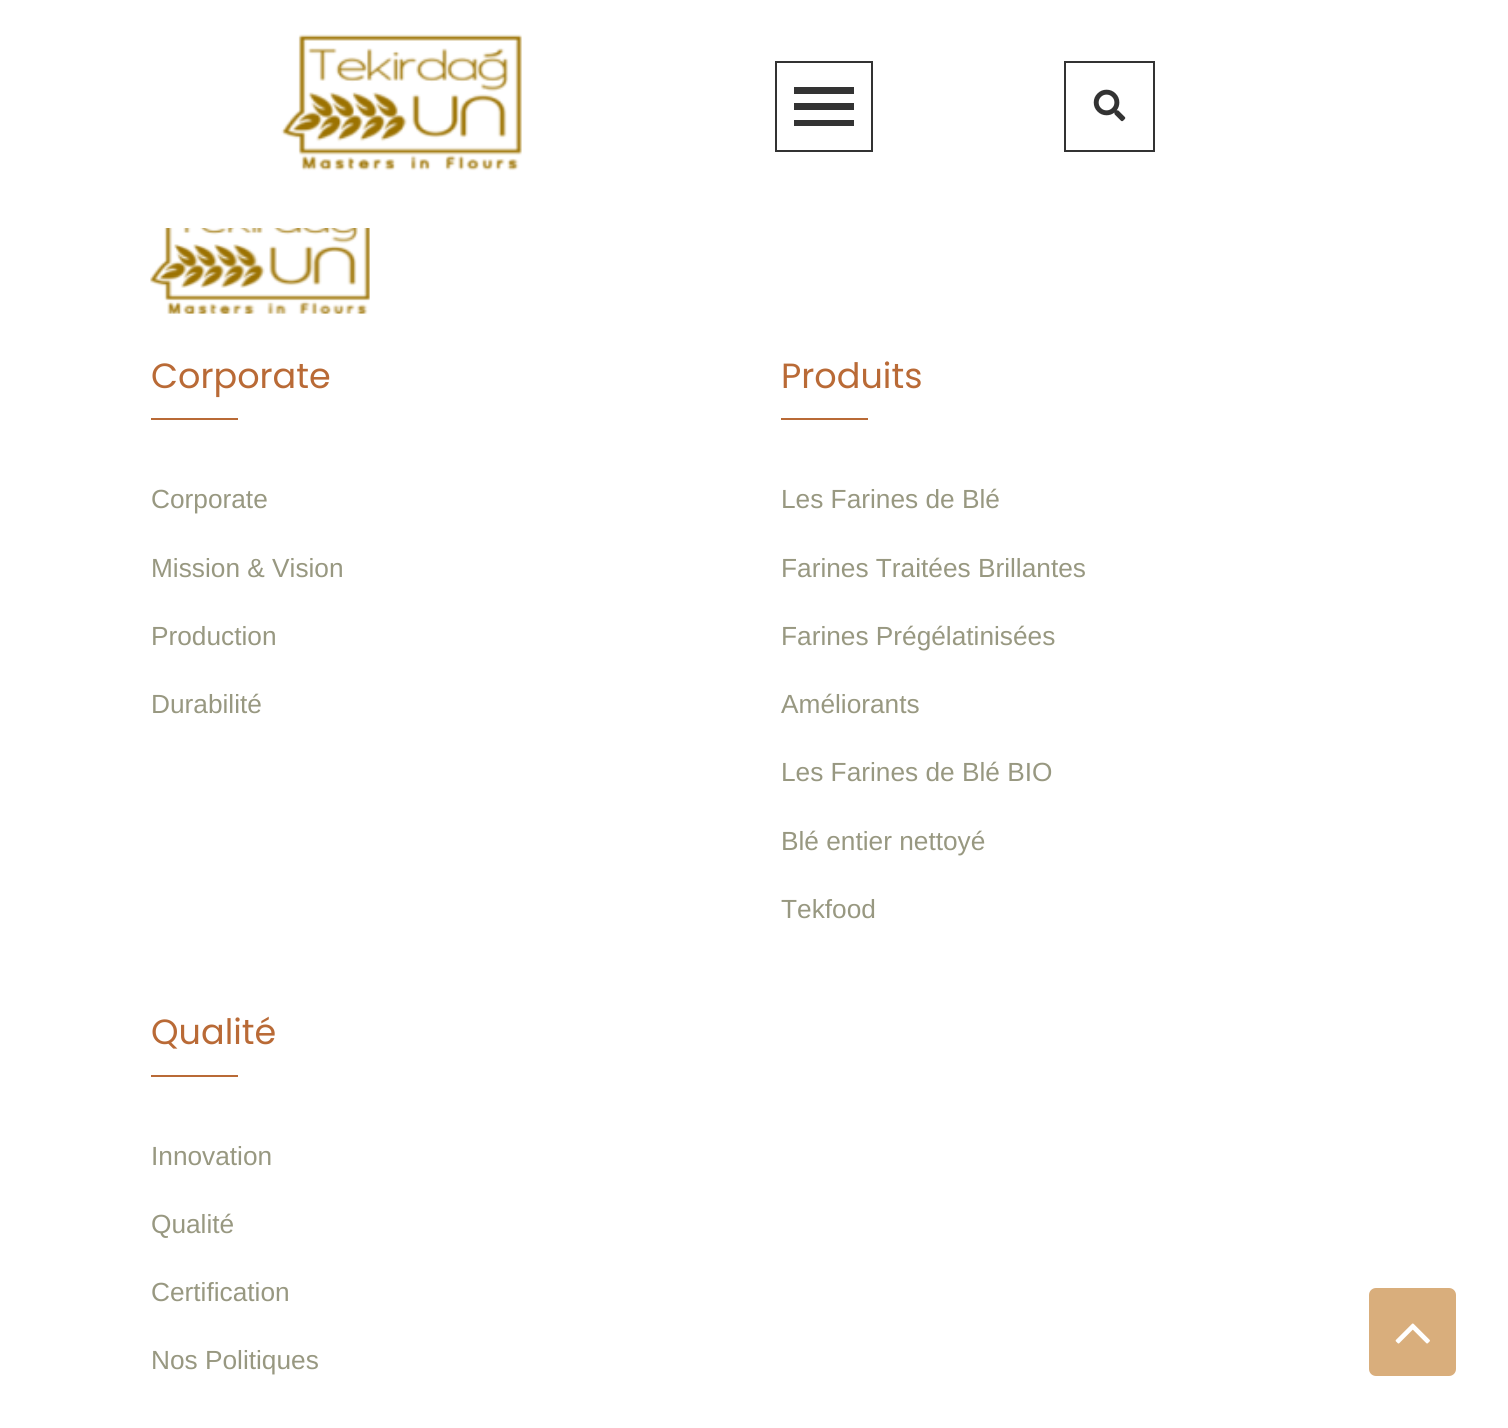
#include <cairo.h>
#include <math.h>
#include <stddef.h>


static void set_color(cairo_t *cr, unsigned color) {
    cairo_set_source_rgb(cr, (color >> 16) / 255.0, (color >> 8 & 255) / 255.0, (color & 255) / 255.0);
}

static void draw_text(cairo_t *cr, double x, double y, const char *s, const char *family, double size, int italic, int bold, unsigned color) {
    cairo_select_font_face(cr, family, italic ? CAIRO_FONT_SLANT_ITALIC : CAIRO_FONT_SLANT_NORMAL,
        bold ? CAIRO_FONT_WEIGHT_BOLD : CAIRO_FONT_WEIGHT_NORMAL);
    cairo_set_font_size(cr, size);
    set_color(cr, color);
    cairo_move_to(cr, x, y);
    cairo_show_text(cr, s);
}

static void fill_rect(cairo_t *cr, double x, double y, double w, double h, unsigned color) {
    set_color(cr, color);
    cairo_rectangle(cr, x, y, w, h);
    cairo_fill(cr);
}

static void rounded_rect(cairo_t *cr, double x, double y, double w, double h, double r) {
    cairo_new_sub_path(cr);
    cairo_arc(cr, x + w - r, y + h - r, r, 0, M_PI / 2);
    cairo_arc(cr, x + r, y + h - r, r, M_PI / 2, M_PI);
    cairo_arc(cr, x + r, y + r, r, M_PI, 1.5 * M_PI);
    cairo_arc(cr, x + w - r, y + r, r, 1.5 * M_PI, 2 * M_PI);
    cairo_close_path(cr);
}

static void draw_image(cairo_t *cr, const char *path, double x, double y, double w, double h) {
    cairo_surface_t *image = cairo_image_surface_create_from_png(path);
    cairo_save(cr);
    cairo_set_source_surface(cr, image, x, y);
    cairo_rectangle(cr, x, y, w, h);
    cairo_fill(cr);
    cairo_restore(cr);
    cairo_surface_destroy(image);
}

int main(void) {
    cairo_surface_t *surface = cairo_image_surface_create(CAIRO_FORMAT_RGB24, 1508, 1428);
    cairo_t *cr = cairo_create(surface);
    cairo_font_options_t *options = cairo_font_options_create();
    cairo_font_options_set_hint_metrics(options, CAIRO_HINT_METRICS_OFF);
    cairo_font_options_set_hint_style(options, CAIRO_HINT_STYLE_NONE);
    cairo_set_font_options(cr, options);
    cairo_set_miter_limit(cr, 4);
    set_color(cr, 0xFFFFFF);
    cairo_paint(cr);
    draw_image(cr, "assets/img1.png", 281, 34, 241, 137);
    cairo_rectangle(cr, 776, 62, 96, 89);
    set_color(cr, 0x333333);
    cairo_stroke(cr);
    cairo_new_path(cr);
    cairo_move_to(cr, 794, 126);
    cairo_line_to(cr, 794, 120);
    cairo_line_to(cr, 854, 120);
    cairo_line_to(cr, 854, 126);
    cairo_close_path(cr);
    cairo_move_to(cr, 794, 110);
    cairo_line_to(cr, 794, 103);
    cairo_line_to(cr, 854, 103);
    cairo_line_to(cr, 854, 110);
    cairo_close_path(cr);
    cairo_move_to(cr, 794, 87);
    cairo_line_to(cr, 854, 87);
    cairo_line_to(cr, 854, 94);
    cairo_line_to(cr, 794, 94);
    cairo_close_path(cr);
    cairo_fill(cr);
    cairo_rectangle(cr, 1065, 62, 89, 89);
    cairo_stroke(cr);
    draw_image(cr, "assets/img2.png", 1093, 89, 33, 33);
    draw_image(cr, "assets/img3.png", 150, 228, 220, 86);
    draw_text(cr, 151, 388, "Corporate", "Poppins", 35, 0, 0, 0xB96A36);
    fill_rect(cr, 151, 418, 87, 2, 0xB96A36);
    draw_text(cr, 151, 508, "Corporate", "Liberation Sans", 26.25, 0, 0, 0x989881);
    draw_text(cr, 151, 577, "Mission & Vision", "Liberation Sans", 26.25, 0, 0, 0x989881);
    draw_text(cr, 151, 645, "Production", "Liberation Sans", 26.25, 0, 0, 0x989881);
    draw_text(cr, 151, 713, "Durabilité", "Liberation Sans", 26.25, 0, 0, 0x989881);
    draw_text(cr, 781, 388, "Produits", "Poppins", 35, 0, 0, 0xB96A36);
    fill_rect(cr, 781, 418, 87, 2, 0xB96A36);
    draw_text(cr, 781, 508, "Les Farines de Blé", "Liberation Sans", 26.25, 0, 0, 0x989881);
    draw_text(cr, 781, 577, "Farines Traitées Brillantes", "Liberation Sans", 26.25, 0, 0, 0x989881);
    draw_text(cr, 781, 645, "Farines Prégélatinisées", "Liberation Sans", 26.25, 0, 0, 0x989881);
    draw_text(cr, 781, 713, "Améliorants", "Liberation Sans", 26.25, 0, 0, 0x989881);
    draw_text(cr, 781, 781, "Les Farines de Blé BIO", "Liberation Sans", 26.25, 0, 0, 0x989881);
    draw_text(cr, 781, 850, "Blé entier nettoyé", "Liberation Sans", 26.25, 0, 0, 0x989881);
    draw_text(cr, 781, 918, "Tekfood", "Liberation Sans", 26.25, 0, 0, 0x989881);
    draw_text(cr, 151, 1044, "Qualité", "Poppins", 35, 0, 0, 0xB96A36);
    fill_rect(cr, 151, 1075, 87, 2, 0xB96A36);
    draw_text(cr, 151, 1165, "Innovation", "Liberation Sans", 26.25, 0, 0, 0x989881);
    draw_text(cr, 151, 1233, "Qualité", "Liberation Sans", 26.25, 0, 0, 0x989881);
    draw_text(cr, 151, 1301, "Certification", "Liberation Sans", 26.25, 0, 0, 0x989881);
    draw_text(cr, 151, 1369, "Nos Politiques", "Liberation Sans", 26.25, 0, 0, 0x989881);
    set_color(cr, 0xD9AE7C);
    rounded_rect(cr, 1369, 1288, 87, 88, 7);
    cairo_fill(cr);
    draw_image(cr, "assets/img4.png", 1395, 1323, 35, 21);
    cairo_surface_write_to_png(surface, "output.png");
    cairo_font_options_destroy(options);
    cairo_destroy(cr);
    cairo_surface_destroy(surface);
    return 0;
}
